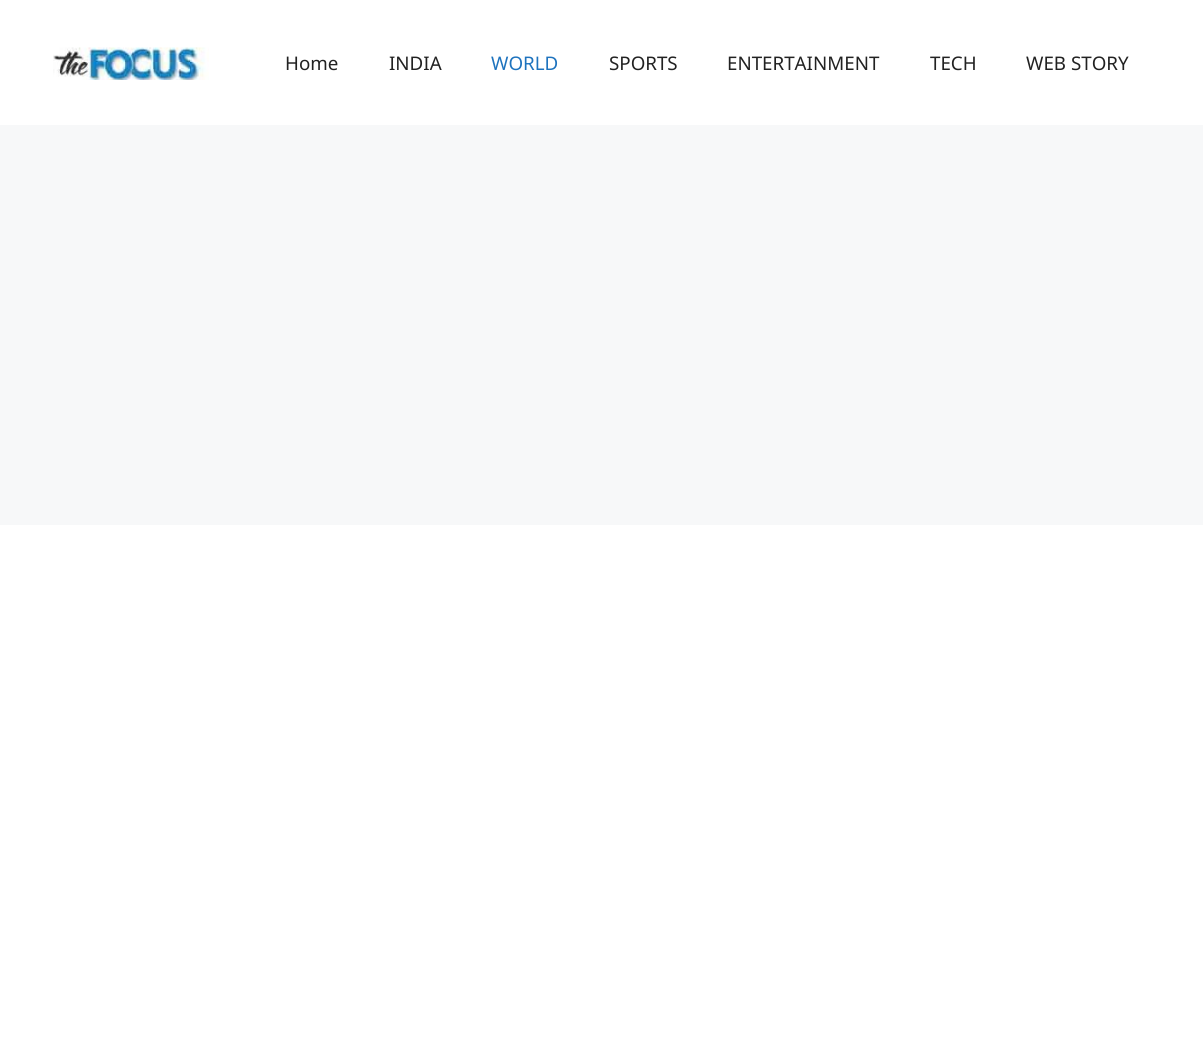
#include <cairo.h>
#include <math.h>
#include <stddef.h>


static void set_color(cairo_t *cr, unsigned color) {
    cairo_set_source_rgb(cr, (color >> 16) / 255.0, (color >> 8 & 255) / 255.0, (color & 255) / 255.0);
}

static void draw_text(cairo_t *cr, double x, double y, const char *s, const char *family, double size, int italic, int bold, unsigned color) {
    cairo_select_font_face(cr, family, italic ? CAIRO_FONT_SLANT_ITALIC : CAIRO_FONT_SLANT_NORMAL,
        bold ? CAIRO_FONT_WEIGHT_BOLD : CAIRO_FONT_WEIGHT_NORMAL);
    cairo_set_font_size(cr, size);
    set_color(cr, color);
    cairo_move_to(cr, x, y);
    cairo_show_text(cr, s);
}

static void fill_rect(cairo_t *cr, double x, double y, double w, double h, unsigned color) {
    set_color(cr, color);
    cairo_rectangle(cr, x, y, w, h);
    cairo_fill(cr);
}

static void draw_image(cairo_t *cr, const char *path, double x, double y, double w, double h) {
    cairo_surface_t *image = cairo_image_surface_create_from_png(path);
    cairo_save(cr);
    cairo_set_source_surface(cr, image, x, y);
    cairo_rectangle(cr, x, y, w, h);
    cairo_fill(cr);
    cairo_restore(cr);
    cairo_surface_destroy(image);
}

int main(void) {
    cairo_surface_t *surface = cairo_image_surface_create(CAIRO_FORMAT_RGB24, 1203, 1038);
    cairo_t *cr = cairo_create(surface);
    cairo_font_options_t *options = cairo_font_options_create();
    cairo_font_options_set_hint_metrics(options, CAIRO_HINT_METRICS_OFF);
    cairo_font_options_set_hint_style(options, CAIRO_HINT_STYLE_NONE);
    cairo_set_font_options(cr, options);
    cairo_set_miter_limit(cr, 4);
    set_color(cr, 0xF7F8F9);
    cairo_paint(cr);
    fill_rect(cr, 0, 0, 1203, 125, 0xFFFFFF);
    draw_image(cr, "assets/img1.png", 53, 47, 156, 33);
    draw_text(cr, 285, 70, "Home", "Noto Sans", 18.75, 0, 0, 0x222222);
    draw_text(cr, 389, 70, "INDIA", "Noto Sans", 18.75, 0, 0, 0x222222);
    draw_text(cr, 491, 70, "WORLD", "Noto Sans", 18.75, 0, 0, 0x1E73BE);
    draw_text(cr, 609, 70, "SPORTS", "Noto Sans", 18.75, 0, 0, 0x222222);
    draw_text(cr, 727, 70, "ENTERTAINMENT", "Noto Sans", 18.75, 0, 0, 0x222222);
    draw_text(cr, 930, 70, "TECH", "Noto Sans", 18.75, 0, 0, 0x222222);
    draw_text(cr, 1026, 70, "WEB STORY", "Noto Sans", 18.75, 0, 0, 0x222222);
    fill_rect(cr, 0, 525, 1203, 513, 0xFFFFFF);
    cairo_surface_write_to_png(surface, "output.png");
    cairo_font_options_destroy(options);
    cairo_destroy(cr);
    cairo_surface_destroy(surface);
    return 0;
}
